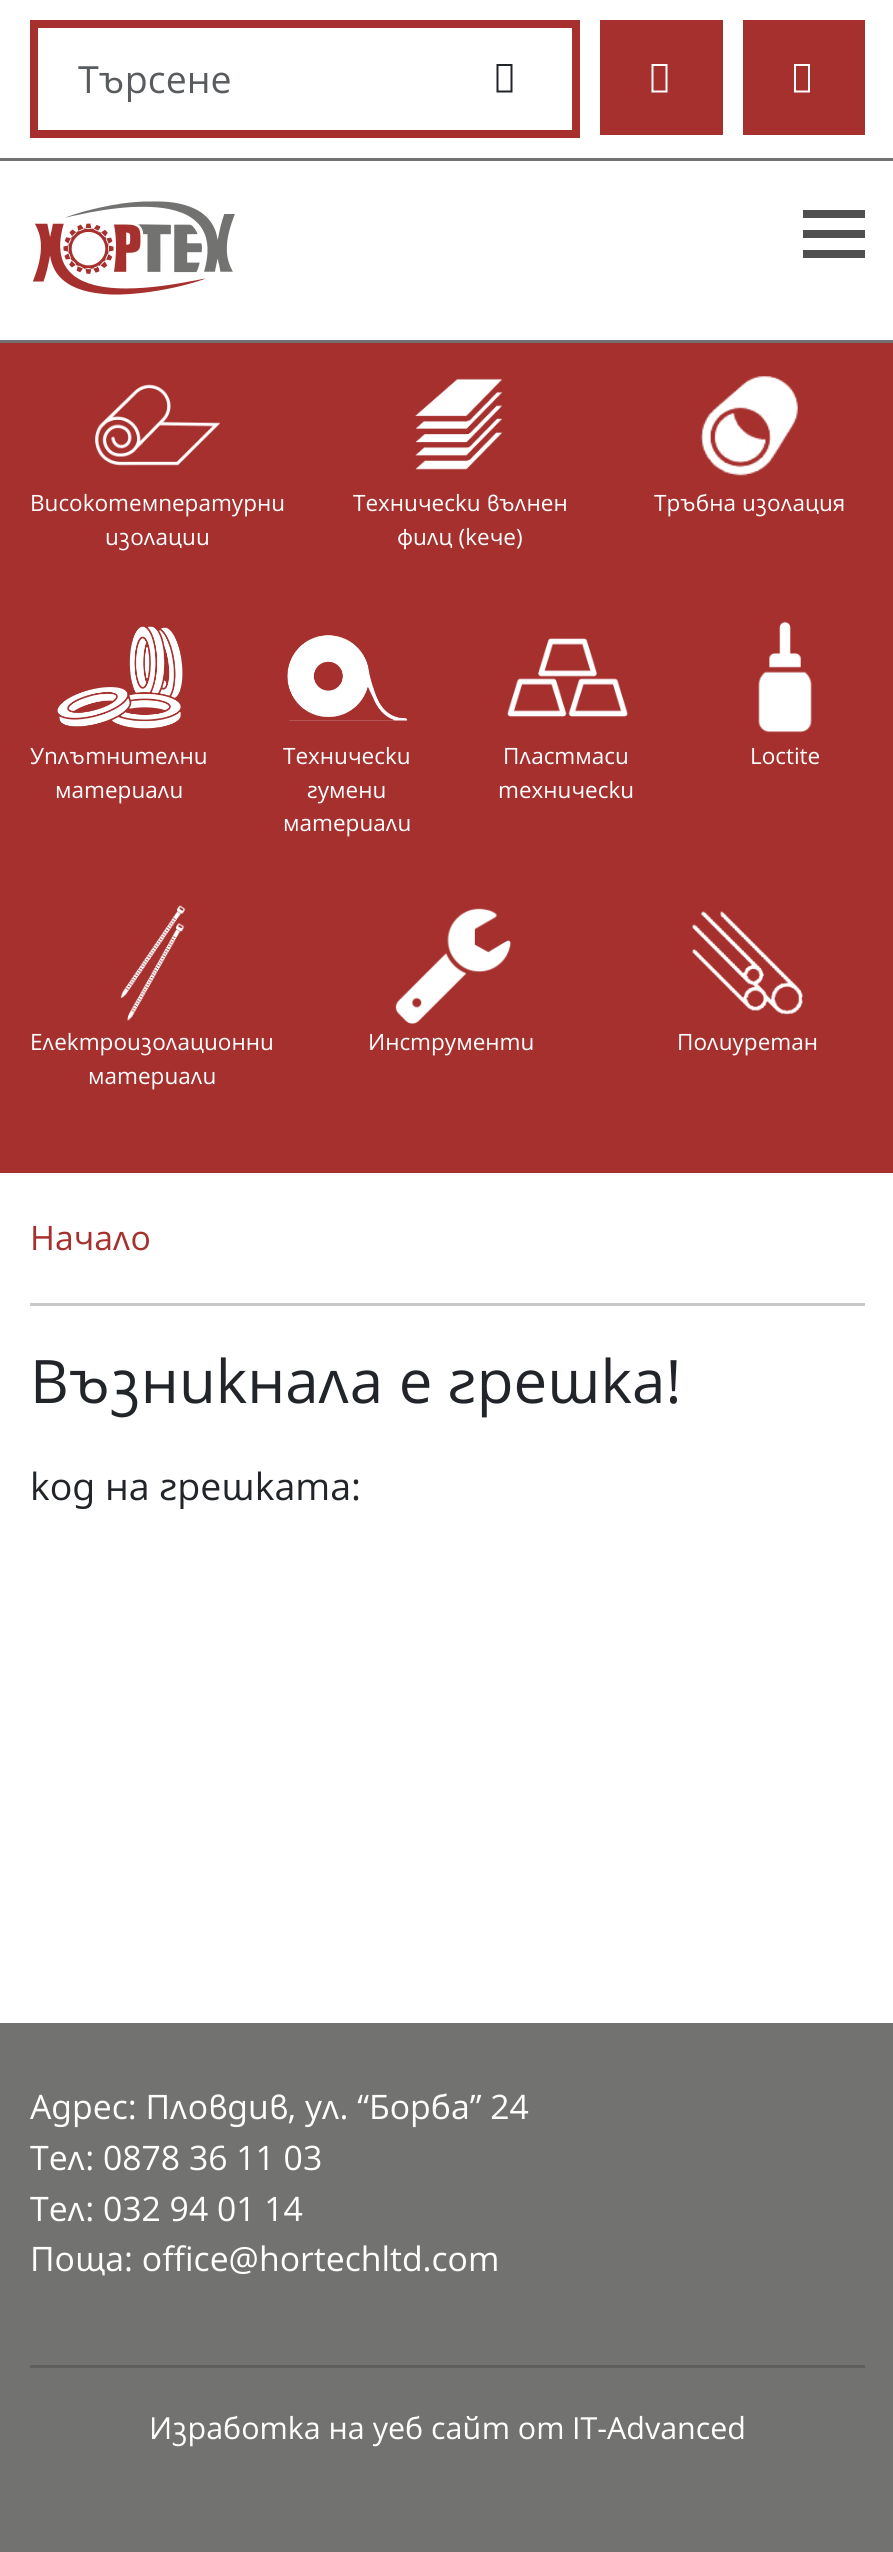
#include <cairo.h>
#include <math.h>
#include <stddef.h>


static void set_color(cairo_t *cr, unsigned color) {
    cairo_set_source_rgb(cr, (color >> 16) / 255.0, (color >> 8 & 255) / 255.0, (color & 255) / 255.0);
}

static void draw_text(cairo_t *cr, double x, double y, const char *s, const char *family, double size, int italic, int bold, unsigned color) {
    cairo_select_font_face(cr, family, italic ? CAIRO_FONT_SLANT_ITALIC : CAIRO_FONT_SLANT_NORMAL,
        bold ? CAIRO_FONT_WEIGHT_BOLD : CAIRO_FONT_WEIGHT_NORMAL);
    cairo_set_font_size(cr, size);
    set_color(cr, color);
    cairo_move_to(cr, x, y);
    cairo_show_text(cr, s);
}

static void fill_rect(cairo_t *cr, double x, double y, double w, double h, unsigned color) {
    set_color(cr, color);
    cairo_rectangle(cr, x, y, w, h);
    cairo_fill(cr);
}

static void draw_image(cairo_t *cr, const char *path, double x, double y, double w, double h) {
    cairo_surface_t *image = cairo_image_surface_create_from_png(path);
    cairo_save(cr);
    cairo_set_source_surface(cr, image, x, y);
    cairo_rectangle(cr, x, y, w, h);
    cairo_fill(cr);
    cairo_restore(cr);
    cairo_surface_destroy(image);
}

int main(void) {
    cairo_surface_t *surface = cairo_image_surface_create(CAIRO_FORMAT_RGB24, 893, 2552);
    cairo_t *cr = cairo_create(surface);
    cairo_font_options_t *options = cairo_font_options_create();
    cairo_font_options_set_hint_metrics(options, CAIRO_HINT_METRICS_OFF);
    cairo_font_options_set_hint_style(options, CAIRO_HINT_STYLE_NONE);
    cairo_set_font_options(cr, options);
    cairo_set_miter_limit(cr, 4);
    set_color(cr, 0xFFFFFF);
    cairo_paint(cr);
    cairo_rectangle(cr, 34, 24, 542, 110);
    set_color(cr, 0xA5302E);
    cairo_set_line_width(cr, 8);
    cairo_stroke(cr);
    cairo_save(cr);
    cairo_rectangle(cr, 78, 53, 337, 50);
    cairo_clip(cr);
    draw_text(cr, 78, 93, "Търсeне", "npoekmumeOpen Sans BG", 37.5, 0, 0, 0x595C5F);
    cairo_restore(cr);
    set_color(cr, 0x212529);
    cairo_new_path(cr);
    cairo_move_to(cr, 496.5, 92.5);
    cairo_line_to(cr, 496.5, 64);
    cairo_line_to(cr, 512.5, 64);
    cairo_line_to(cr, 512.5, 92.5);
    cairo_close_path(cr);
    cairo_move_to(cr, 498.5, 90.5);
    cairo_line_to(cr, 510.5, 90.5);
    cairo_line_to(cr, 510.5, 66);
    cairo_line_to(cr, 498.5, 66);
    cairo_close_path(cr);
    cairo_fill(cr);
    fill_rect(cr, 600, 20, 123, 115, 0xA5302E);
    set_color(cr, 0xFFFFFF);
    cairo_new_path(cr);
    cairo_move_to(cr, 651.5, 92.5);
    cairo_line_to(cr, 651.5, 64);
    cairo_line_to(cr, 667.5, 64);
    cairo_line_to(cr, 667.5, 92.5);
    cairo_close_path(cr);
    cairo_move_to(cr, 653.5, 90.5);
    cairo_line_to(cr, 665.5, 90.5);
    cairo_line_to(cr, 665.5, 66);
    cairo_line_to(cr, 653.5, 66);
    cairo_close_path(cr);
    cairo_fill(cr);
    fill_rect(cr, 743, 20, 122, 115, 0xA5302E);
    set_color(cr, 0xFFFFFF);
    cairo_new_path(cr);
    cairo_move_to(cr, 794, 92.5);
    cairo_line_to(cr, 794, 64);
    cairo_line_to(cr, 810, 64);
    cairo_line_to(cr, 810, 92.5);
    cairo_close_path(cr);
    cairo_move_to(cr, 796, 90.5);
    cairo_line_to(cr, 808, 90.5);
    cairo_line_to(cr, 808, 66);
    cairo_line_to(cr, 796, 66);
    cairo_close_path(cr);
    cairo_fill(cr);
    fill_rect(cr, 0, 158, 893, 3, 0x727271);
    fill_rect(cr, 0, 340, 893, 3, 0x727271);
    draw_image(cr, "assets/img1.png", 33, 201, 202, 94);
    fill_rect(cr, 803, 210, 62, 8, 0x4F4F4F);
    fill_rect(cr, 803, 230, 62, 8, 0x4F4F4F);
    fill_rect(cr, 803, 250, 62, 8, 0x4F4F4F);
    fill_rect(cr, 0, 343, 893, 830, 0xA5302E);
    draw_image(cr, "assets/img2.png", 95, 384, 125, 82);
    draw_text(cr, 30, 511, "Високотемпературни", "npoekmumeOpen Sans BG", 22.5, 0, 0, 0xFFFFFF);
    draw_text(cr, 105, 545, "изолации", "npoekmumeOpen Sans BG", 22.5, 0, 0, 0xFFFFFF);
    draw_image(cr, "assets/img3.png", 415, 378, 88, 92);
    draw_text(cr, 353, 511, "Технически вълнен", "npoekmumeOpen Sans BG", 22.5, 0, 0, 0xFFFFFF);
    draw_text(cr, 397, 545, "филц (кече)", "npoekmumeOpen Sans BG", 22.5, 0, 0, 0xFFFFFF);
    draw_image(cr, "assets/img4.png", 700, 376, 98, 100);
    draw_text(cr, 654, 511, "Тръбна изолация", "npoekmumeOpen Sans BG", 22.5, 0, 0, 0xFFFFFF);
    draw_image(cr, "assets/img5.png", 57, 626, 126, 103);
    draw_text(cr, 30, 764, "Уплътнителни", "npoekmumeOpen Sans BG", 22.5, 0, 0, 0xFFFFFF);
    draw_text(cr, 55, 798, "материали", "npoekmumeOpen Sans BG", 22.5, 0, 0, 0xFFFFFF);
    draw_image(cr, "assets/img6.png", 287, 635, 121, 86);
    draw_text(cr, 283, 764, "Технически", "npoekmumeOpen Sans BG", 22.5, 0, 0, 0xFFFFFF);
    draw_text(cr, 307, 798, "гумени", "npoekmumeOpen Sans BG", 22.5, 0, 0, 0xFFFFFF);
    draw_text(cr, 283, 831, "материали", "npoekmumeOpen Sans BG", 22.5, 0, 0, 0xFFFFFF);
    draw_image(cr, "assets/img7.png", 507, 638, 121, 79);
    draw_text(cr, 503, 764, "Пластмаси", "npoekmumeOpen Sans BG", 22.5, 0, 0, 0xFFFFFF);
    draw_text(cr, 498, 798, "технически", "npoekmumeOpen Sans BG", 22.5, 0, 0, 0xFFFFFF);
    draw_image(cr, "assets/img8.png", 758, 621, 54, 112);
    draw_text(cr, 750, 764, "Loctite", "npoekmumeOpen Sans BG", 22.5, 0, 0, 0xFFFFFF);
    draw_image(cr, "assets/img9.png", 120, 905, 66, 116);
    draw_text(cr, 30, 1050, "Електроизолационни", "npoekmumeOpen Sans BG", 22.5, 0, 0, 0xFFFFFF);
    draw_text(cr, 88, 1084, "материали", "npoekmumeOpen Sans BG", 22.5, 0, 0, 0xFFFFFF);
    draw_image(cr, "assets/img10.png", 395, 908, 117, 117);
    draw_text(cr, 368, 1050, "Инструменти", "npoekmumeOpen Sans BG", 22.5, 0, 0, 0xFFFFFF);
    draw_image(cr, "assets/img11.png", 692, 911, 111, 104);
    draw_text(cr, 677, 1050, "Полиуретан", "npoekmumeOpen Sans BG", 22.5, 0, 0, 0xFFFFFF);
    draw_text(cr, 30, 1250, "Начало", "npoekmumeOpen Sans BG", 33.75, 0, 0, 0xA5302E);
    fill_rect(cr, 30, 1303, 835, 3, 0xC8C9CA);
    draw_text(cr, 30, 1403, "Възникнала е грешка!", "npoekmumeOpen Sans BG", 60, 0, 0, 0x212529);
    draw_text(cr, 30, 1500, "код на грешката:", "npoekmumeOpen Sans BG", 37.5, 0, 0, 0x212529);
    fill_rect(cr, 0, 2023, 893, 529, 0x727271);
    draw_text(cr, 30, 2119, "Адрес: Пловдив, ул. “Борба” 24", "npoekmumeOpen Sans BG", 33.75, 0, 0, 0xFFFFFF);
    draw_text(cr, 30, 2170, "Тел: 0878 36 11 03", "npoekmumeOpen Sans BG", 33.75, 0, 0, 0xFFFFFF);
    draw_text(cr, 30, 2221, "Тел: 032 94 01 14", "npoekmumeOpen Sans BG", 33.75, 0, 0, 0xFFFFFF);
    draw_text(cr, 30, 2271, "Поща: office@hortechltd.com", "npoekmumeOpen Sans BG", 33.75, 0, 0, 0xFFFFFF);
    fill_rect(cr, 30, 2365, 835, 3, 0x5E5F5F);
    draw_text(cr, 149, 2439, "Изработка на уеб сайт от", "npoekmumeOpen Sans BG", 30.4, 0, 0, 0xFFFFFF);
    draw_text(cr, 572, 2439, "IT-Advanced", "npoekmumeOpen Sans BG", 30.4, 0, 0, 0xFFFFFF);
    cairo_surface_write_to_png(surface, "output.png");
    cairo_font_options_destroy(options);
    cairo_destroy(cr);
    cairo_surface_destroy(surface);
    return 0;
}
